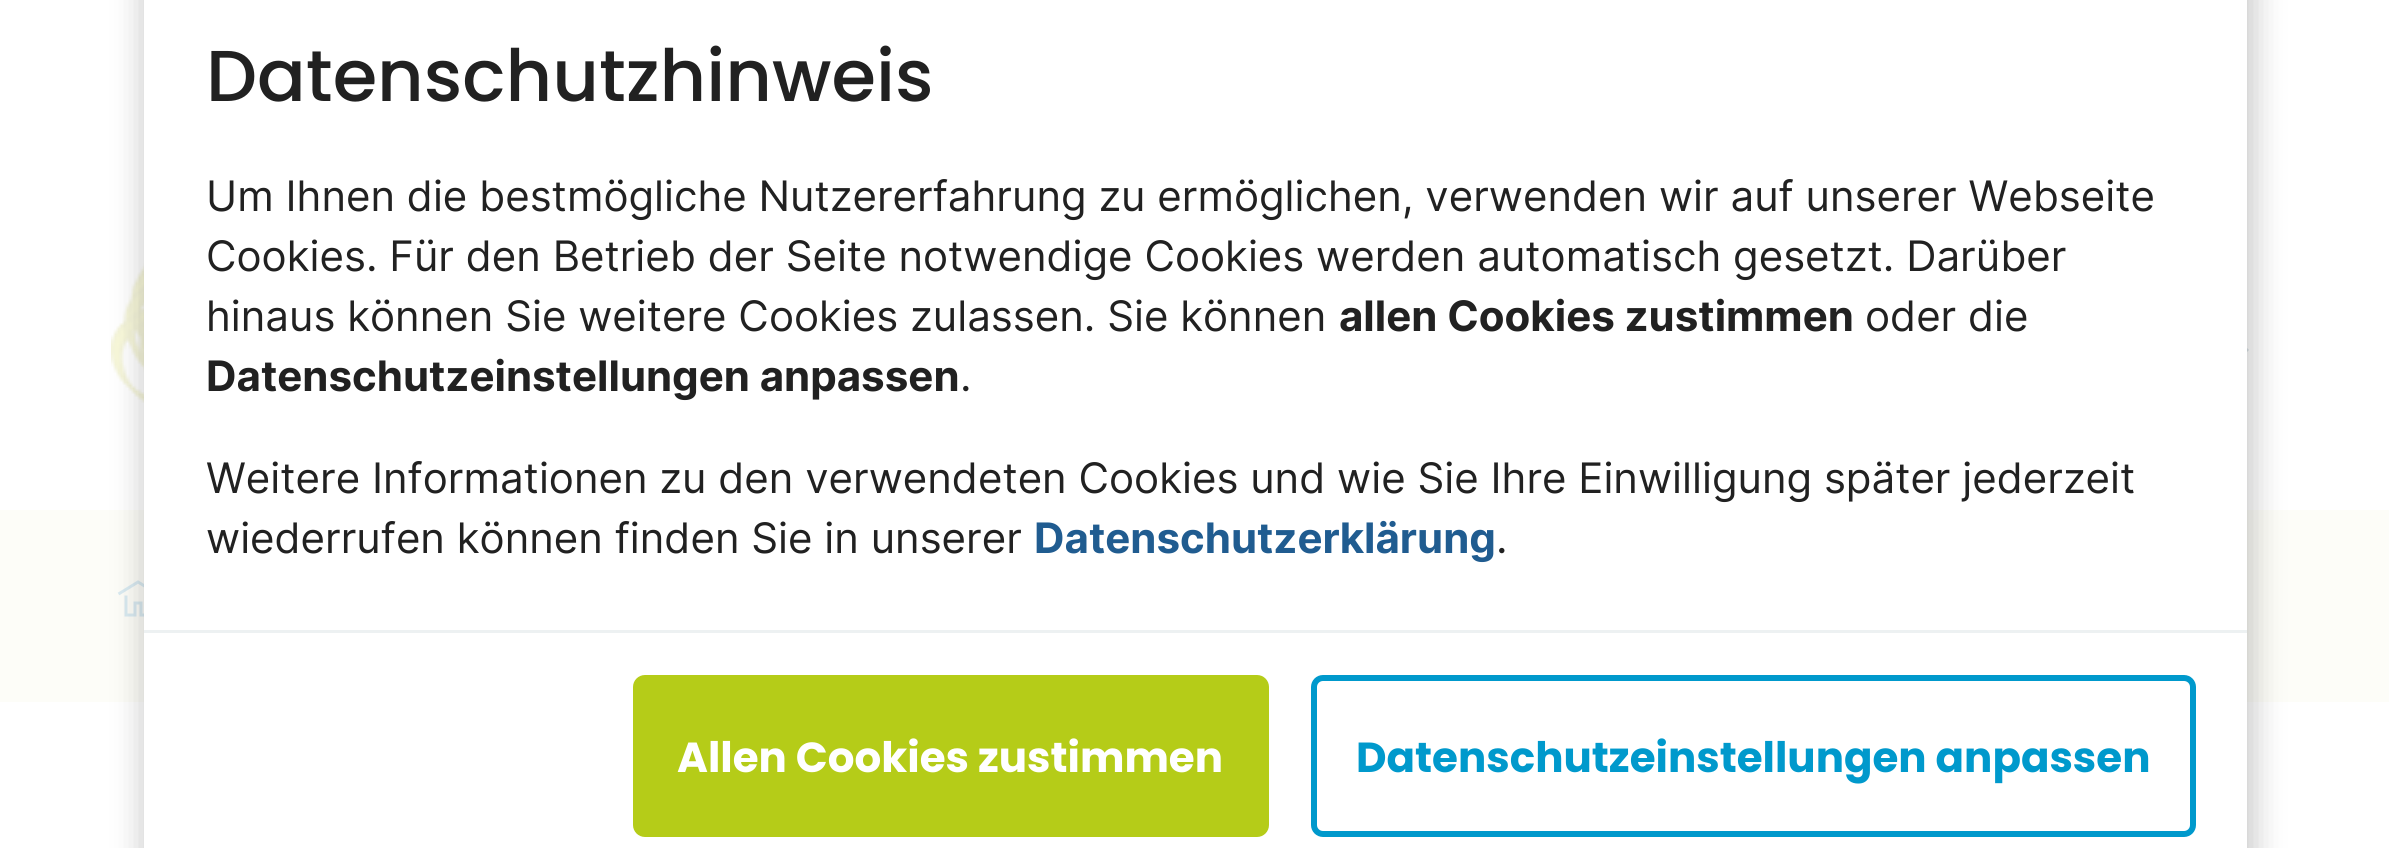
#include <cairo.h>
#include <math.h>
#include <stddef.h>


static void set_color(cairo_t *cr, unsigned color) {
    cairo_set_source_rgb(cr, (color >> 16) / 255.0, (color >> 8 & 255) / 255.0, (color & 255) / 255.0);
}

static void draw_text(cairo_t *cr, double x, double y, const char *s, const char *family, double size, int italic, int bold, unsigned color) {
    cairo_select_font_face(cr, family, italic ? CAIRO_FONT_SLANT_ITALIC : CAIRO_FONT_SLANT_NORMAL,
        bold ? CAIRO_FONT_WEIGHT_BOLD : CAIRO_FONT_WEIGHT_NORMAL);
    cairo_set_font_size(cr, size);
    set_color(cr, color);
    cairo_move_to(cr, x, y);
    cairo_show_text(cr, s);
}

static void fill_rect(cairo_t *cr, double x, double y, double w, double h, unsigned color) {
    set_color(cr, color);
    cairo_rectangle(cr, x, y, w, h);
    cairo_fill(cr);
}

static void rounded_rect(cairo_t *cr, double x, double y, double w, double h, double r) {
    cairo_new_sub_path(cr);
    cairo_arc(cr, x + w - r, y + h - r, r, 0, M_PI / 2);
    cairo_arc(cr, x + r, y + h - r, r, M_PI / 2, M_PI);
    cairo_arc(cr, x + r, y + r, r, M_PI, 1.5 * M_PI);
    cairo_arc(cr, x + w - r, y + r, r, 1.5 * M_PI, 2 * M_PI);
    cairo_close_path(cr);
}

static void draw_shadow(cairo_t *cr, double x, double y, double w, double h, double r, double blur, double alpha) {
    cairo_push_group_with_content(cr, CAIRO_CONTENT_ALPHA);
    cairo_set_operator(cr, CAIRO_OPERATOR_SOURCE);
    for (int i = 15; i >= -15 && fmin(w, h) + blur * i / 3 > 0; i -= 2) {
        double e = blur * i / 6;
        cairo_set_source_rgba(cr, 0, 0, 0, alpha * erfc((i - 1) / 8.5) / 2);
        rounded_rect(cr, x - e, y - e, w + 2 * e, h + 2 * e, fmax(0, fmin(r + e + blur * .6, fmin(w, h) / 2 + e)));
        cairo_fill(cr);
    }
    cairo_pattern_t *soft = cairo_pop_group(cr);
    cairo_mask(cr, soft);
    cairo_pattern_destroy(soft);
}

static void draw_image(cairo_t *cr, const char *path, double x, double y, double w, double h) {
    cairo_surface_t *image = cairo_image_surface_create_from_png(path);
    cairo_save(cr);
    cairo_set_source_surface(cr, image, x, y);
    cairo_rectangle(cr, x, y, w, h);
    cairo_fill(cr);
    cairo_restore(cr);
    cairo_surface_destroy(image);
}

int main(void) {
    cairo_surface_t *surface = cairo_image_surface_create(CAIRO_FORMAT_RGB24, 2389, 848);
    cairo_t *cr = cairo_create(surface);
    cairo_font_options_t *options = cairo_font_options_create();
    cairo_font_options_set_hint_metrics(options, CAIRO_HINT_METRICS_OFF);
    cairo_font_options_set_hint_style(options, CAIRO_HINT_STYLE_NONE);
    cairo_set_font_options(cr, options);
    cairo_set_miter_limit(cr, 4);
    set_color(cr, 0xFFFFFF);
    cairo_paint(cr);
    draw_image(cr, "assets/img1.png", 111, 263, 33, 140);
    set_color(cr, 0xD9E3E7);
    cairo_set_fill_rule(cr, CAIRO_FILL_RULE_EVEN_ODD);
    cairo_new_path(cr);
    cairo_move_to(cr, 2146, 289);
    cairo_curve_to(cr, 2146, 269, 2162, 253, 2182, 253);
    cairo_curve_to(cr, 2202, 253, 2218, 269, 2218, 289);
    cairo_curve_to(cr, 2218, 309, 2202, 325, 2182, 325);
    cairo_curve_to(cr, 2162, 325, 2146, 309, 2146, 289);
    cairo_close_path(cr);
    cairo_move_to(cr, 2249, 350);
    cairo_line_to(cr, 2216, 317);
    cairo_curve_to(cr, 2242, 286, 2214, 238, 2173, 246);
    cairo_curve_to(cr, 2165, 248, 2157, 252, 2151, 258);
    cairo_curve_to(cr, 2145, 264, 2141, 272, 2139, 280);
    cairo_curve_to(cr, 2131, 321, 2179, 349, 2210, 323);
    cairo_line_to(cr, 2243, 356);
    cairo_close_path(cr);
    cairo_fill(cr);
    fill_rect(cr, 0, 510, 2389, 192, 0xFDFDF8);
    draw_image(cr, "assets/img2.png", 117, 580, 27, 37);
    set_color(cr, 0x000000);
    draw_shadow(cr, 141, -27, 2115, 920, 0, 15, 0.2);
    fill_rect(cr, 144, 0, 2103, 848, 0xFFFFFF);
    draw_text(cr, 206, 101, "Datenschutzhinweis", "Poppins Medium", 72, 0, 0, 0x212121);
    draw_text(cr, 206, 211, "Um Ihnen die bestmögliche Nutzererfahrung zu ermöglichen, verwenden wir auf unserer Webseite", "Inter", 42, 0, 0, 0x212121);
    draw_text(cr, 206, 271, "Cookies. Für den Betrieb der Seite notwendige Cookies werden automatisch gesetzt. Darüber", "Inter", 42, 0, 0, 0x212121);
    draw_text(cr, 206, 331, "hinaus können Sie weitere Cookies zulassen. Sie können", "Inter", 42, 0, 0, 0x212121);
    draw_text(cr, 1339, 331, "allen Cookies zustimmen", "Inter", 42, 0, 1, 0x212121);
    draw_text(cr, 1865, 331, "oder die", "Inter", 42, 0, 0, 0x212121);
    draw_text(cr, 206, 391, "Datenschutzeinstellungen anpassen", "Inter", 42, 0, 1, 0x212121);
    draw_text(cr, 960, 391, ".", "Inter", 42, 0, 0, 0x212121);
    draw_text(cr, 206, 493, "Weitere Informationen zu den verwendeten Cookies und wie Sie Ihre Einwilligung später jederzeit", "Inter", 42, 0, 0, 0x212121);
    draw_text(cr, 206, 553, "wiederrufen können finden Sie in unserer", "Inter", 42, 0, 0, 0x212121);
    draw_text(cr, 1034, 553, "Datenschutzerklärung", "Inter", 42, 0, 1, 0x205C90);
    draw_text(cr, 1496, 553, ".", "Inter", 42, 0, 0, 0x212121);
    fill_rect(cr, 144, 630, 2103, 3, 0xEDF1F2);
    set_color(cr, 0xB5CC18);
    rounded_rect(cr, 633, 675, 636, 162, 12);
    cairo_fill(cr);
    draw_text(cr, 677, 772, "Allen Cookies zustimmen", "Poppins", 42, 0, 1, 0xFFFFFF);
    rounded_rect(cr, 1314, 678, 879, 156, 9);
    set_color(cr, 0x0099CC);
    cairo_set_line_width(cr, 6);
    cairo_stroke(cr);
    draw_text(cr, 1356, 772, "Datenschutzeinstellungen anpassen", "Poppins", 42, 0, 1, 0x0099CC);
    cairo_surface_write_to_png(surface, "output.png");
    cairo_font_options_destroy(options);
    cairo_destroy(cr);
    cairo_surface_destroy(surface);
    return 0;
}
